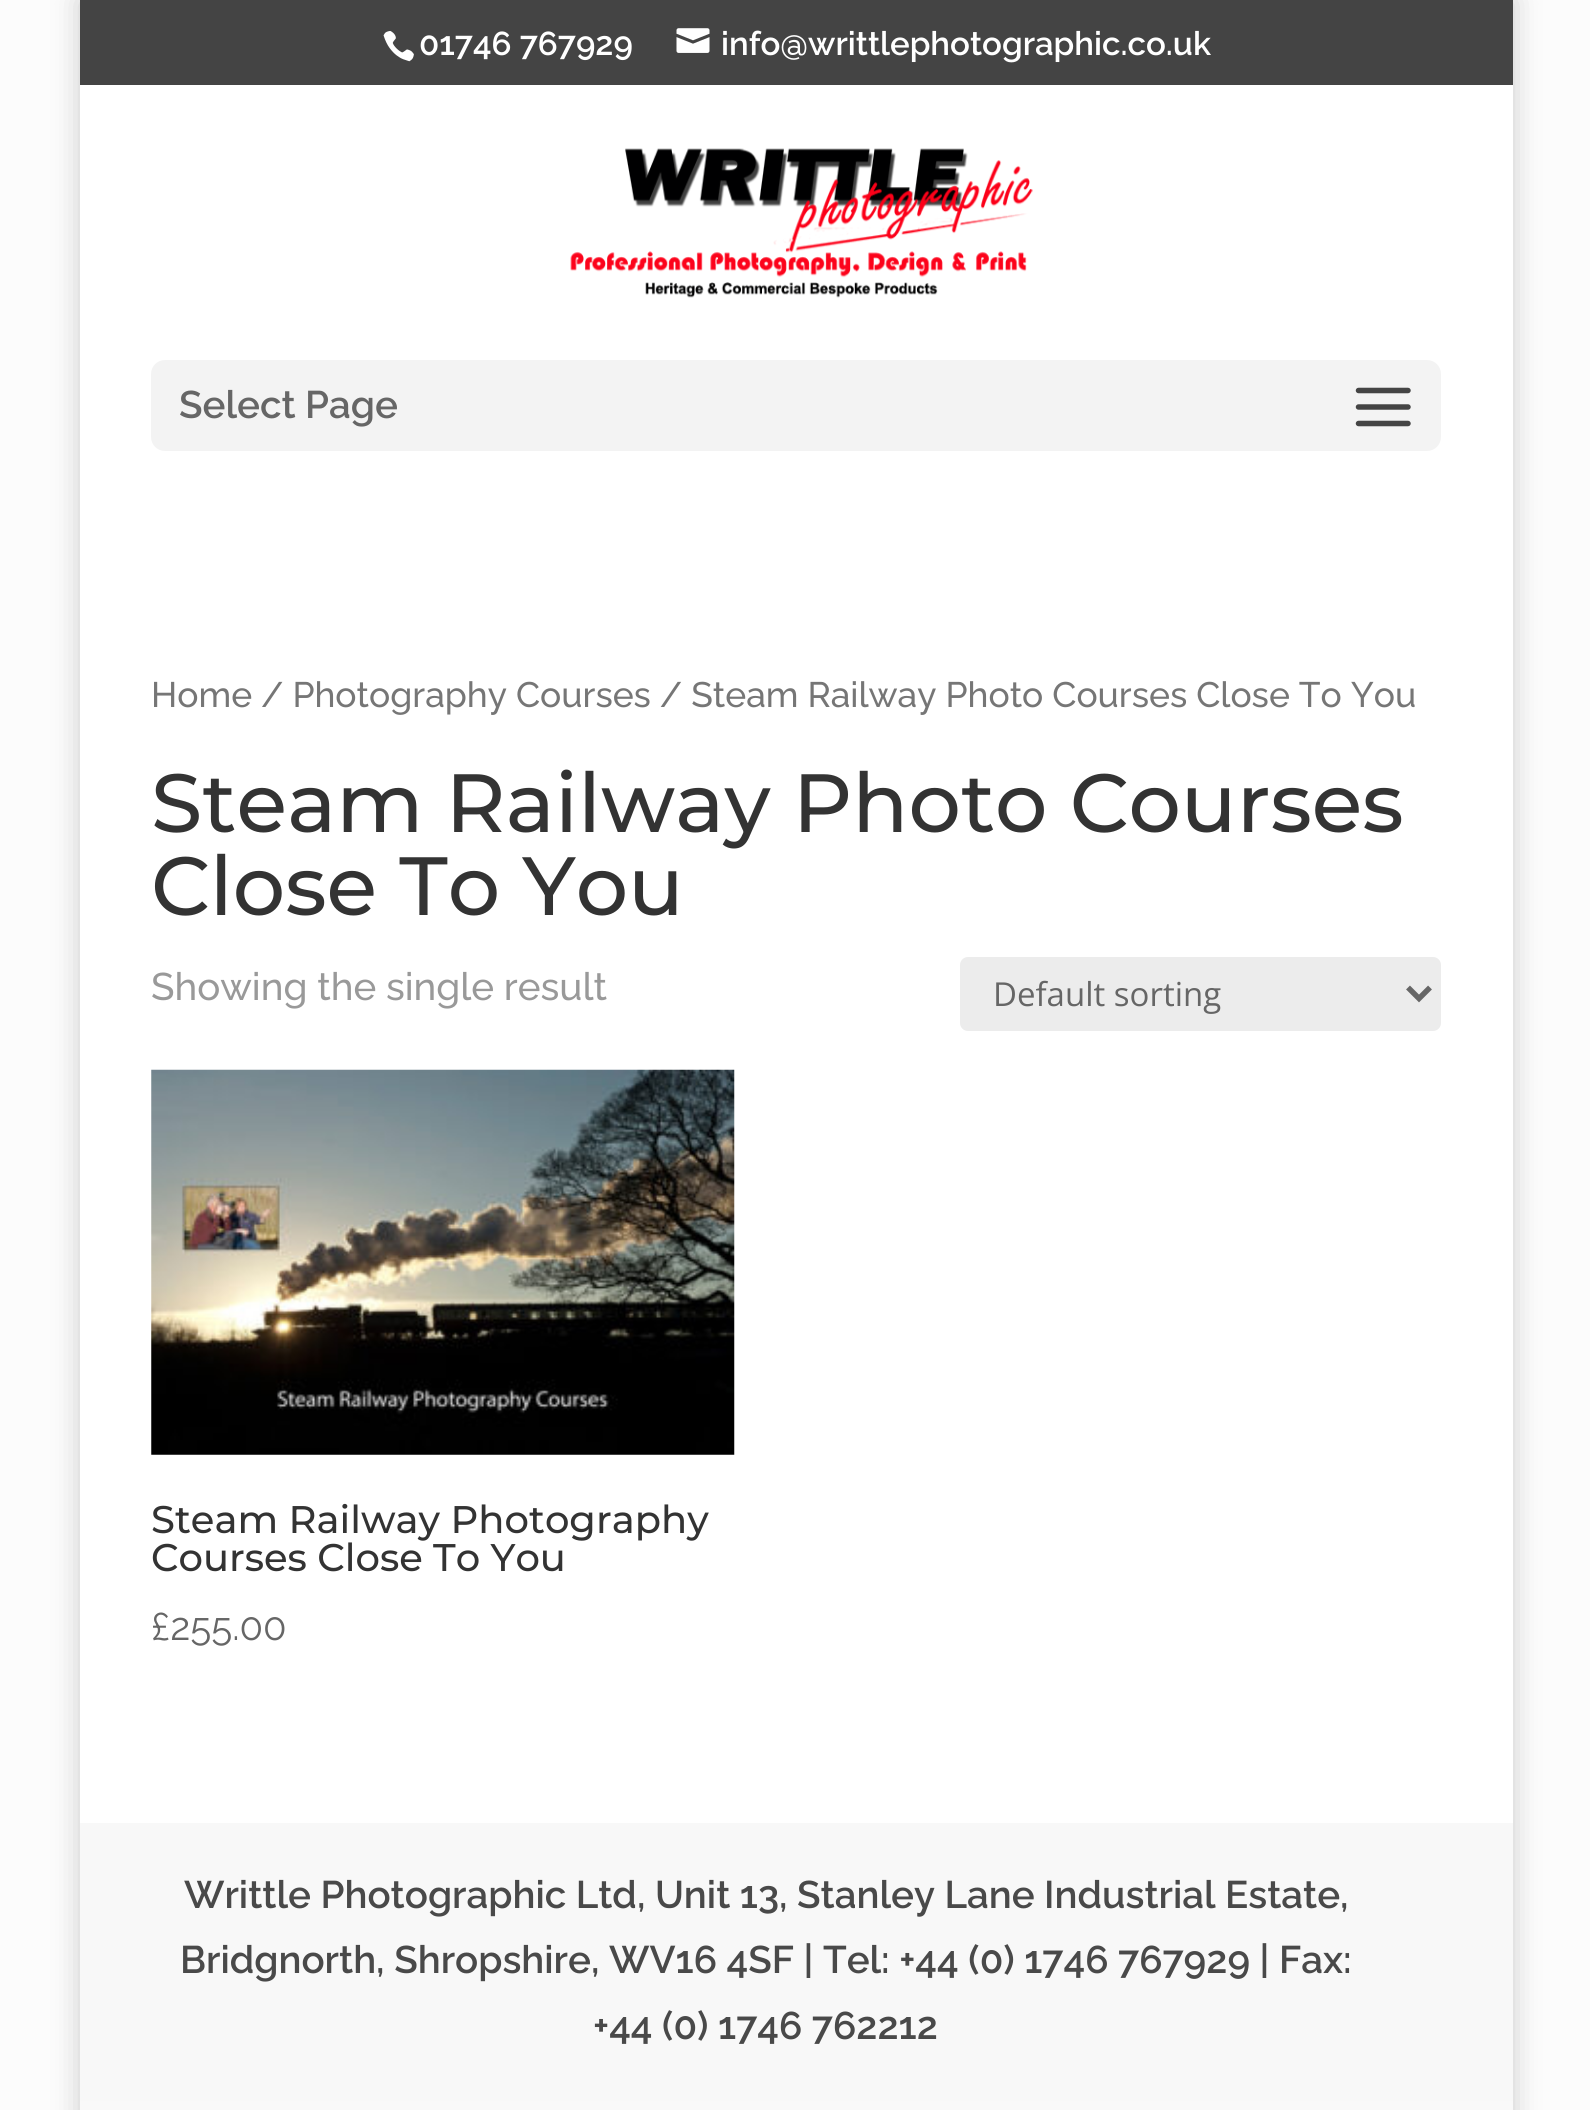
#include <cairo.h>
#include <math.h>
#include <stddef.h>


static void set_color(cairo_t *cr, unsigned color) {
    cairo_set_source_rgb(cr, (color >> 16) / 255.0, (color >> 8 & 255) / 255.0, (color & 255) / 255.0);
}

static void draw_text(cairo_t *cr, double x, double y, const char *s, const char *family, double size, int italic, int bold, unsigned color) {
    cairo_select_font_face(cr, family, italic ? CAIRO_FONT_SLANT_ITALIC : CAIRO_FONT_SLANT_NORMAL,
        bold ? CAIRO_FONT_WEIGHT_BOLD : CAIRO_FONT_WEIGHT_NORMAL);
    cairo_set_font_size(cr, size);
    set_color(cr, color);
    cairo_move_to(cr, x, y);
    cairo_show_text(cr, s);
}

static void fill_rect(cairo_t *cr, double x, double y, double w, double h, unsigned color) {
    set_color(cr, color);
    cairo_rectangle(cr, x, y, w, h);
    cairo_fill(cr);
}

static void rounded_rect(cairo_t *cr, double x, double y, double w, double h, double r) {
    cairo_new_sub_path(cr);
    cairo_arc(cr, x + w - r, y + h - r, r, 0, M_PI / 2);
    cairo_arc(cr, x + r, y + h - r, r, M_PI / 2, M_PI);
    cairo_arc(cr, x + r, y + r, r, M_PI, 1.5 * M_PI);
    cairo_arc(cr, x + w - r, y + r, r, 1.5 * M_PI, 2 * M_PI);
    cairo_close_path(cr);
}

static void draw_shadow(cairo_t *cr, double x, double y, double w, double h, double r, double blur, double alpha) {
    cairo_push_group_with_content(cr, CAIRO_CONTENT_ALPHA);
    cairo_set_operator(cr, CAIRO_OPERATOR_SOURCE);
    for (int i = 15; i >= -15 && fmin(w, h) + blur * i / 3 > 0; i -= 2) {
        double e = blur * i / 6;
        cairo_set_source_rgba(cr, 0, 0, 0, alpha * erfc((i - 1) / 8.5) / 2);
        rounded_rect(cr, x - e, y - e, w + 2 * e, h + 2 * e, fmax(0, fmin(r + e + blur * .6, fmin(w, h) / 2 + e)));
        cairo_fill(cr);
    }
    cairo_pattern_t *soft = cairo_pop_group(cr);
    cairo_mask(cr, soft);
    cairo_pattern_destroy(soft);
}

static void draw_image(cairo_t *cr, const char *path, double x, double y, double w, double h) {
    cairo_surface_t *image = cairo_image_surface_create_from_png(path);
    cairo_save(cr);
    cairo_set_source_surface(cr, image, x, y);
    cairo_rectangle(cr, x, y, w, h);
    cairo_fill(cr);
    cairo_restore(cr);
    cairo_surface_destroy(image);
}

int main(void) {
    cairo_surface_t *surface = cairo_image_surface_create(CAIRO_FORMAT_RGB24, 1590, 2110);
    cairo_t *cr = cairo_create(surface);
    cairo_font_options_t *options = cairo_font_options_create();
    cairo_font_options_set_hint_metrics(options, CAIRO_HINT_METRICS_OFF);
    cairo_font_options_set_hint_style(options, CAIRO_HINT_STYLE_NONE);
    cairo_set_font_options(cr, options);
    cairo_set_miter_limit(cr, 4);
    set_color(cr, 0xFCFCFC);
    cairo_paint(cr);
    set_color(cr, 0x000000);
    draw_shadow(cr, 80, 0, 1433, 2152, 0, 14, 0.2);
    fill_rect(cr, 80, 0, 1433, 85, 0x444444);
    draw_image(cr, "assets/img1.png", 383, 31, 31, 31);
    draw_text(cr, 419, 55, "01746 767929", "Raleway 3 Thin", 33, 0, 0, 0xFFFFFF);
    draw_image(cr, "assets/img2.png", 676, 28, 34, 25);
    draw_text(cr, 721, 55, "info@writtlephotographic.co.uk", "Raleway 3 Thin", 33, 0, 0, 0xFFFFFF);
    fill_rect(cr, 80, 85, 1433, 1738, 0xFFFFFF);
    draw_image(cr, "assets/img3.png", 570, 148, 463, 150);
    set_color(cr, 0xF3F3F3);
    rounded_rect(cr, 151, 360, 1290, 91, 14);
    cairo_fill(cr);
    draw_text(cr, 179, 418, "Select Page", "Raleway 3 Thin", 38.5, 0, 0, 0x666666);
    draw_image(cr, "assets/img4.png", 1355, 387, 56, 40);
    draw_text(cr, 151, 707, "Home / Photography Courses / Steam Railway Photo Courses Close To You", "Raleway Thin", 35.4, 0, 0, 0x767676);
    draw_text(cr, 151, 832, "Steam Railway Photo Courses", "Montserrat Thin", 82.5, 0, 0, 0x333333);
    draw_text(cr, 151, 915, "Close To You", "Montserrat Thin", 82.5, 0, 0, 0x333333);
    draw_text(cr, 151, 1000, "Showing the single result", "Raleway Thin", 38.5, 0, 0, 0x999999);
    set_color(cr, 0xECECEC);
    rounded_rect(cr, 960, 957, 481, 74, 8);
    cairo_fill(cr);
    cairo_new_path(cr);
    cairo_move_to(cr, 1408, 987.5);
    cairo_line_to(cr, 1419, 998.5);
    cairo_line_to(cr, 1430, 987.5);
    set_color(cr, 0x666666);
    cairo_set_line_width(cr, 5.5);
    cairo_stroke(cr);
    draw_text(cr, 993, 1006, "Default sorting", "Open Sans", 33, 0, 0, 0x666666);
    draw_image(cr, "assets/img5.png", 151, 1069, 584, 386);
    draw_text(cr, 151, 1533, "Steam Railway Photography", "Montserrat Thin", 38.5, 0, 0, 0x333333);
    draw_text(cr, 151, 1571, "Courses Close To You", "Montserrat Thin", 38.5, 0, 0, 0x333333);
    draw_text(cr, 151, 1640, "£255.00", "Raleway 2 Thin", 38.5, 0, 0, 0x666666);
    fill_rect(cr, 80, 1823, 1433, 278, 0xF8F8F8);
    draw_text(cr, 184, 1908, "Writtle Photographic Ltd, Unit 13, Stanley Lane Industrial Estate,", "Raleway 3 Thin", 38.5, 0, 0, 0x494949);
    draw_text(cr, 180, 1973, "Bridgnorth, Shropshire, WV16 4SF | Tel: +44 (0) 1746 767929 | Fax:", "Raleway 3 Thin", 38.5, 0, 0, 0x494949);
    draw_text(cr, 593, 2039, "+44 (0) 1746 762212", "Raleway 3 Thin", 38.5, 0, 0, 0x494949);
    fill_rect(cr, 80, 2101, 1433, 9, 0xF9F9F9);
    cairo_surface_write_to_png(surface, "output.png");
    cairo_font_options_destroy(options);
    cairo_destroy(cr);
    cairo_surface_destroy(surface);
    return 0;
}
